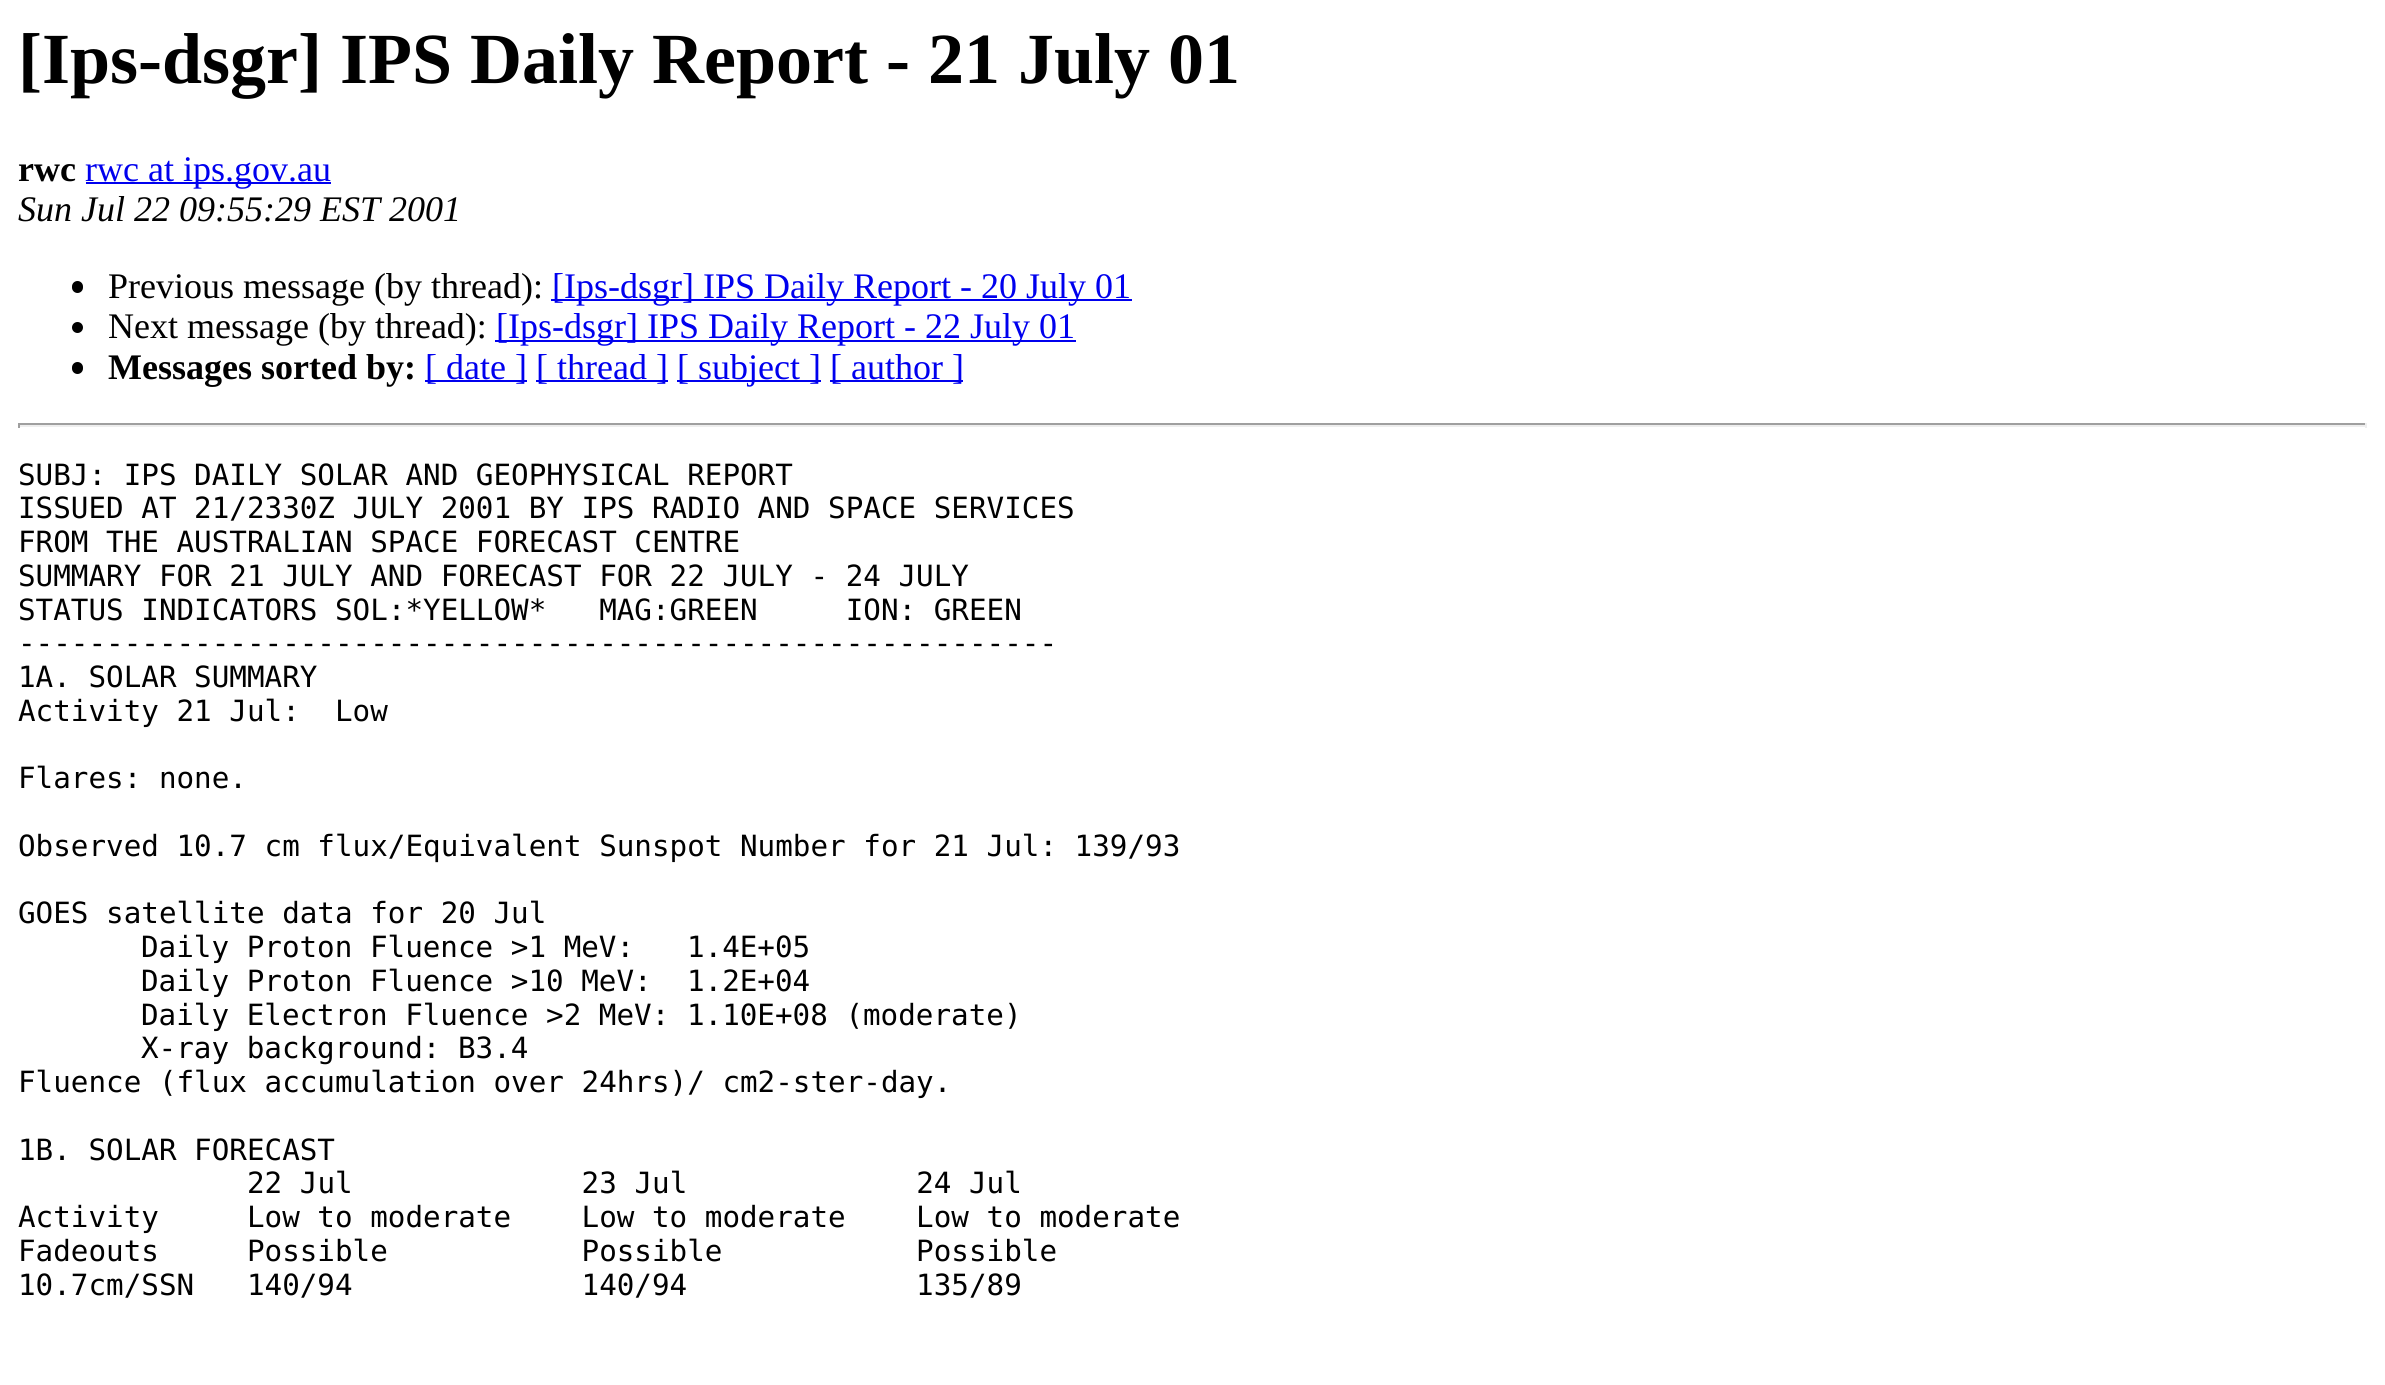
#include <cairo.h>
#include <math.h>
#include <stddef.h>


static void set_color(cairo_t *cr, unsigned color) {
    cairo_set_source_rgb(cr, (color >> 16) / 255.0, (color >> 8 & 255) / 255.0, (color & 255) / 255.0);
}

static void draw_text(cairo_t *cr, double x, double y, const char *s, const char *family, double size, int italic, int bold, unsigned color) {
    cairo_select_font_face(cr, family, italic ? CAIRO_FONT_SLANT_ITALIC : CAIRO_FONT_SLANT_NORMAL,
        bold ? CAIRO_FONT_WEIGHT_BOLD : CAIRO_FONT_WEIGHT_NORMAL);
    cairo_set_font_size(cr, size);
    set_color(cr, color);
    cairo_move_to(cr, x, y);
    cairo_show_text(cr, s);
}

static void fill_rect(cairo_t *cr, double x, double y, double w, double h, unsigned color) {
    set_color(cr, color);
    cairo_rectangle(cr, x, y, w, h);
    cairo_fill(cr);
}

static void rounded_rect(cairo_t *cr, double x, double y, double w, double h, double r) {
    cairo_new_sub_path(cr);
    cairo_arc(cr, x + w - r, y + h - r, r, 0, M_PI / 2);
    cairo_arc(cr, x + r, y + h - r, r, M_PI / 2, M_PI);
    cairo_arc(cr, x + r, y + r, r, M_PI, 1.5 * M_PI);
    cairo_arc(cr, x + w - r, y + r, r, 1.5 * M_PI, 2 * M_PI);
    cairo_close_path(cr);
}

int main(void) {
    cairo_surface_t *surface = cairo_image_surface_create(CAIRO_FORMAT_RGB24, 2385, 1385);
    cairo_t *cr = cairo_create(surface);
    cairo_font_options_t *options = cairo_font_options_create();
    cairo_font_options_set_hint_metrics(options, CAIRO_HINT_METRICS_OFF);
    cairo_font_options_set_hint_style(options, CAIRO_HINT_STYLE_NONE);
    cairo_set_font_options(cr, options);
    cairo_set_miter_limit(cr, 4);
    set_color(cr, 0xFFFFFF);
    cairo_paint(cr);
    draw_text(cr, 18, 83, "[Ips-dsgr] IPS Daily Report - 21 July 01", "Liberation Serif", 72, 0, 1, 0x000000);
    draw_text(cr, 18, 181, "rwc", "Liberation Serif", 36, 0, 1, 0x000000);
    fill_rect(cr, 86, 182, 245, 2, 0x0000EE);
    draw_text(cr, 85, 181, "rwc at ips.gov.au", "Liberation Serif", 36, 0, 0, 0x0000EE);
    draw_text(cr, 18, 221, "Sun Jul 22 09:55:29 EST 2001", "Liberation Serif", 36, 1, 0, 0x000000);
    rounded_rect(cr, 72, 281, 11, 12, 5.5);
    cairo_fill(cr);
    draw_text(cr, 108, 298, "Previous message (by thread):", "Liberation Serif", 36, 0, 0, 0x000000);
    fill_rect(cr, 551, 299, 581, 2, 0x0000EE);
    draw_text(cr, 552, 298, "[Ips-dsgr] IPS Daily Report - 20 July 01", "Liberation Serif", 36, 0, 0, 0x0000EE);
    set_color(cr, 0x000000);
    cairo_new_path(cr);
    cairo_arc(cr, 77.5, 327.5, 5.5, 0, 2 * M_PI);
    cairo_fill(cr);
    draw_text(cr, 108, 338, "Next message (by thread):", "Liberation Serif", 36, 0, 0, 0x000000);
    fill_rect(cr, 495, 340, 581, 2, 0x0000EE);
    draw_text(cr, 496, 338, "[Ips-dsgr] IPS Daily Report - 22 July 01", "Liberation Serif", 36, 0, 0, 0x0000EE);
    set_color(cr, 0x000000);
    rounded_rect(cr, 72, 362, 11, 12, 5.5);
    cairo_fill(cr);
    draw_text(cr, 108, 379, "Messages sorted by:", "Liberation Serif", 36, 0, 1, 0x000000);
    fill_rect(cr, 425, 380, 102, 2, 0x0000EE);
    draw_text(cr, 425, 379, "[ date ]", "Liberation Serif", 36, 0, 0, 0x0000EE);
    fill_rect(cr, 536, 380, 132, 2, 0x0000EE);
    draw_text(cr, 536, 379, "[ thread ]", "Liberation Serif", 36, 0, 0, 0x0000EE);
    fill_rect(cr, 677, 380, 144, 2, 0x0000EE);
    draw_text(cr, 677, 379, "[ subject ]", "Liberation Serif", 36, 0, 0, 0x0000EE);
    fill_rect(cr, 830, 380, 133, 2, 0x0000EE);
    draw_text(cr, 830, 379, "[ author ]", "Liberation Serif", 36, 0, 0, 0x0000EE);
    fill_rect(cr, 18, 423, 2349, 2, 0x9F9F9F);
    fill_rect(cr, 2365, 423, 2, 5, 0xEEEEEE);
    fill_rect(cr, 18, 425, 2349, 2, 0xEEEEEE);
    fill_rect(cr, 18, 423, 2, 5, 0x9F9F9F);
    draw_text(cr, 18, 485, "SUBJ: IPS DAILY SOLAR AND GEOPHYSICAL REPORT", "DejaVu Sans Mono", 29.25, 0, 0, 0x000000);
    draw_text(cr, 18, 518, "ISSUED AT 21/2330Z JULY 2001 BY IPS RADIO AND SPACE SERVICES", "DejaVu Sans Mono", 29.25, 0, 0, 0x000000);
    draw_text(cr, 18, 552, "FROM THE AUSTRALIAN SPACE FORECAST CENTRE", "DejaVu Sans Mono", 29.25, 0, 0, 0x000000);
    draw_text(cr, 18, 586, "SUMMARY FOR 21 JULY AND FORECAST FOR 22 JULY - 24 JULY", "DejaVu Sans Mono", 29.25, 0, 0, 0x000000);
    draw_text(cr, 18, 620, "STATUS INDICATORS SOL:*YELLOW*   MAG:GREEN     ION: GREEN", "DejaVu Sans Mono", 29.25, 0, 0, 0x000000);
    draw_text(cr, 18, 653, "-----------------------------------------------------------", "DejaVu Sans Mono", 29.25, 0, 0, 0x000000);
    draw_text(cr, 18, 687, "1A. SOLAR SUMMARY", "DejaVu Sans Mono", 29.25, 0, 0, 0x000000);
    draw_text(cr, 18, 721, "Activity 21 Jul:  Low", "DejaVu Sans Mono", 29.25, 0, 0, 0x000000);
    draw_text(cr, 18, 788, "Flares: none.", "DejaVu Sans Mono", 29.25, 0, 0, 0x000000);
    draw_text(cr, 18, 856, "Observed 10.7 cm flux/Equivalent Sunspot Number for 21 Jul: 139/93", "DejaVu Sans Mono", 29.25, 0, 0, 0x000000);
    draw_text(cr, 18, 923, "GOES satellite data for 20 Jul", "DejaVu Sans Mono", 29.25, 0, 0, 0x000000);
    draw_text(cr, 141, 957, "Daily Proton Fluence >1 MeV:   1.4E+05", "DejaVu Sans Mono", 29.25, 0, 0, 0x000000);
    draw_text(cr, 141, 991, "Daily Proton Fluence >10 MeV:  1.2E+04", "DejaVu Sans Mono", 29.25, 0, 0, 0x000000);
    draw_text(cr, 141, 1025, "Daily Electron Fluence >2 MeV: 1.10E+08 (moderate)", "DejaVu Sans Mono", 29.25, 0, 0, 0x000000);
    draw_text(cr, 141, 1058, "X-ray background: B3.4", "DejaVu Sans Mono", 29.25, 0, 0, 0x000000);
    draw_text(cr, 18, 1092, "Fluence (flux accumulation over 24hrs)/ cm2-ster-day.", "DejaVu Sans Mono", 29.25, 0, 0, 0x000000);
    draw_text(cr, 18, 1160, "1B. SOLAR FORECAST", "DejaVu Sans Mono", 29.25, 0, 0, 0x000000);
    draw_text(cr, 247, 1193, "22 Jul             23 Jul             24 Jul", "DejaVu Sans Mono", 29.25, 0, 0, 0x000000);
    draw_text(cr, 18, 1227, "Activity     Low to moderate    Low to moderate    Low to moderate", "DejaVu Sans Mono", 29.25, 0, 0, 0x000000);
    draw_text(cr, 18, 1261, "Fadeouts     Possible           Possible           Possible", "DejaVu Sans Mono", 29.25, 0, 0, 0x000000);
    draw_text(cr, 18, 1295, "10.7cm/SSN   140/94             140/94             135/89", "DejaVu Sans Mono", 29.25, 0, 0, 0x000000);
    cairo_surface_write_to_png(surface, "output.png");
    cairo_font_options_destroy(options);
    cairo_destroy(cr);
    cairo_surface_destroy(surface);
    return 0;
}
